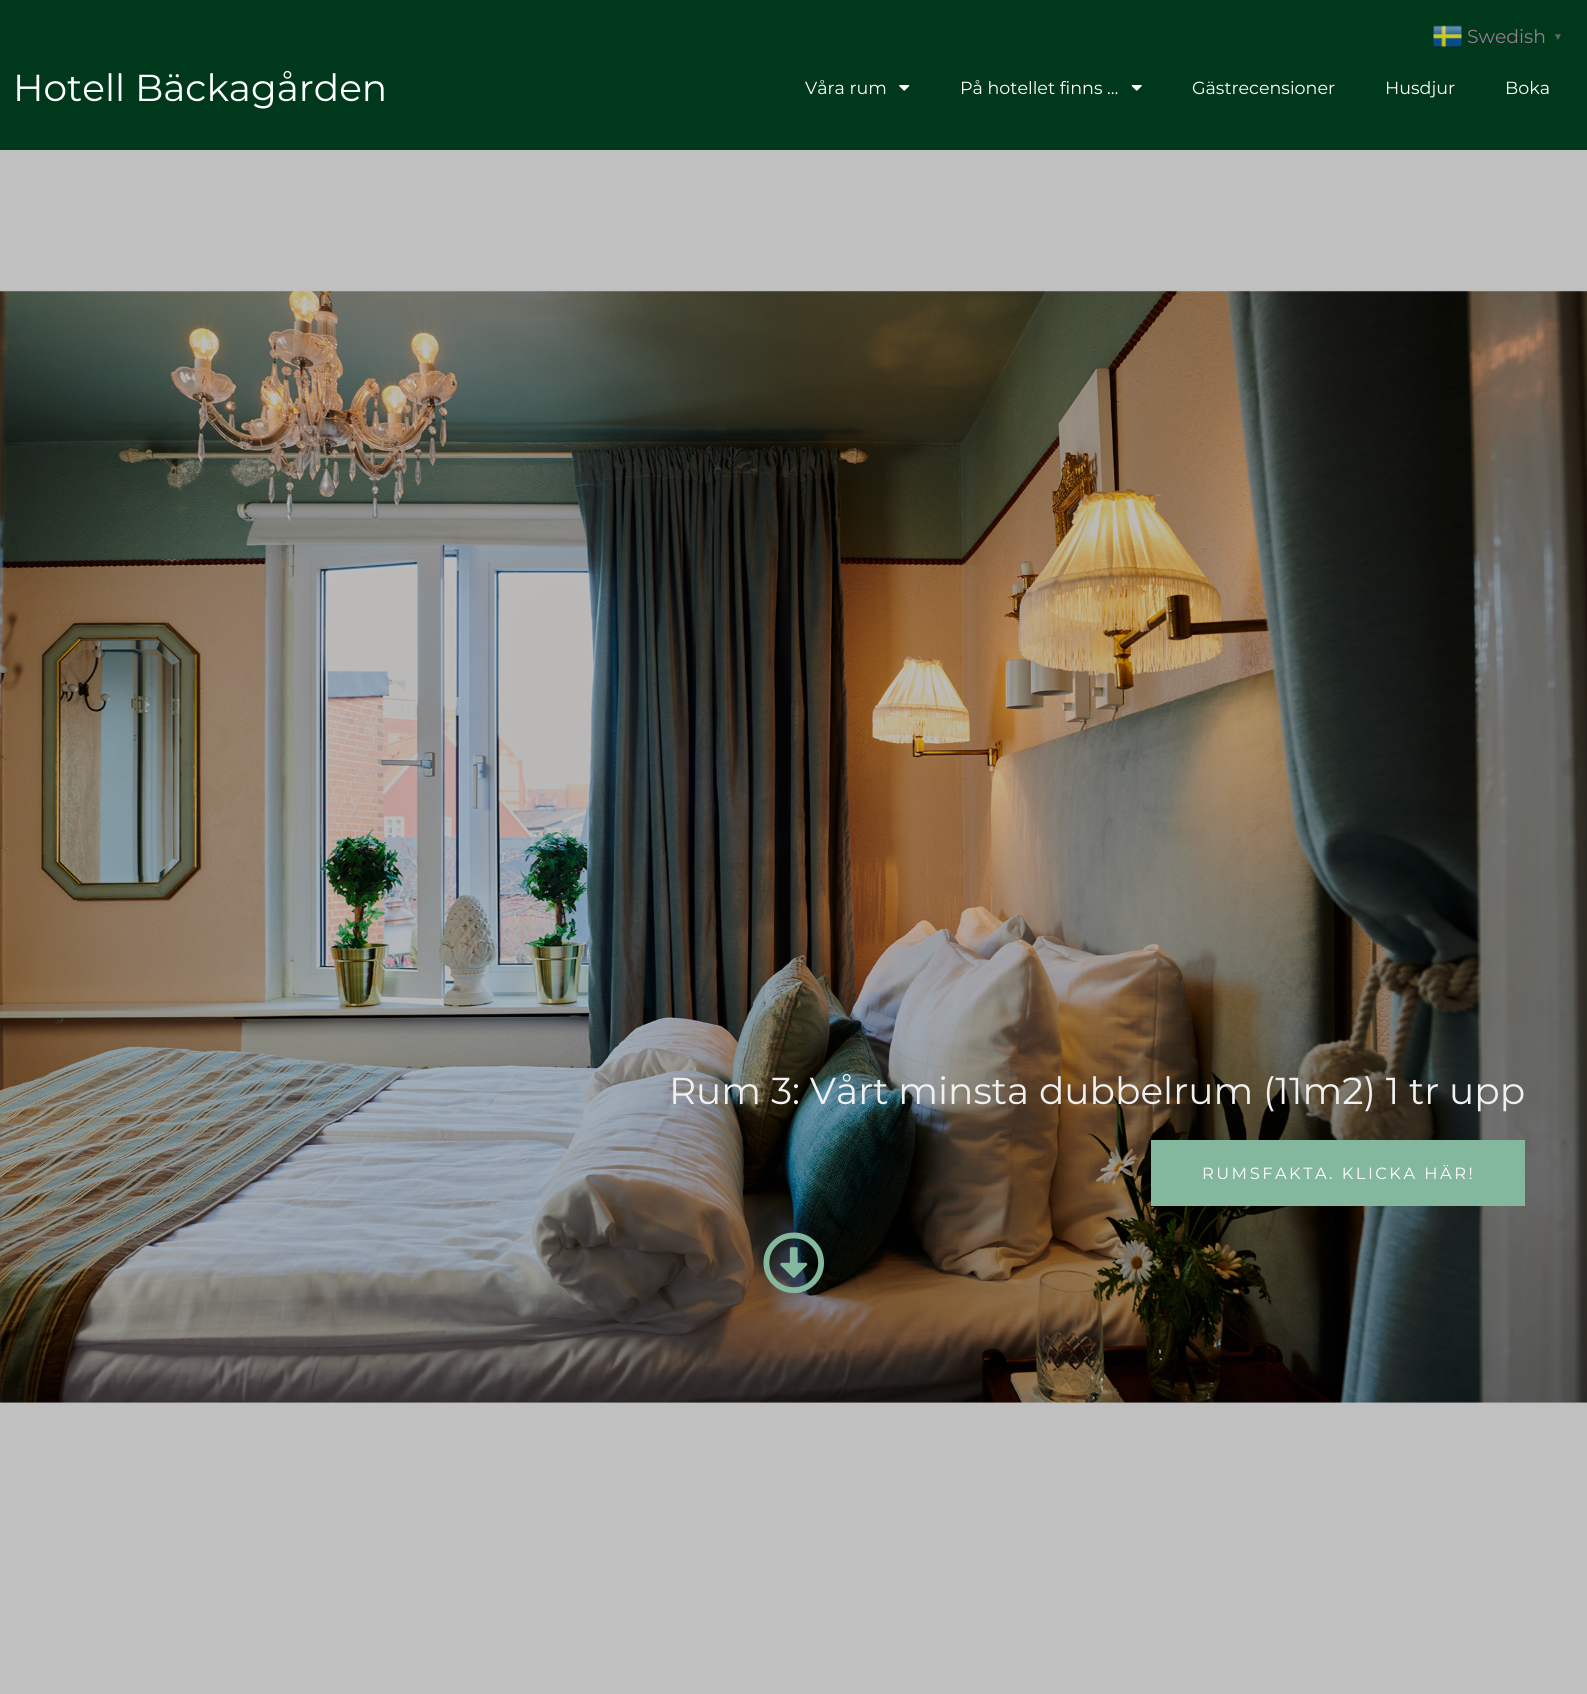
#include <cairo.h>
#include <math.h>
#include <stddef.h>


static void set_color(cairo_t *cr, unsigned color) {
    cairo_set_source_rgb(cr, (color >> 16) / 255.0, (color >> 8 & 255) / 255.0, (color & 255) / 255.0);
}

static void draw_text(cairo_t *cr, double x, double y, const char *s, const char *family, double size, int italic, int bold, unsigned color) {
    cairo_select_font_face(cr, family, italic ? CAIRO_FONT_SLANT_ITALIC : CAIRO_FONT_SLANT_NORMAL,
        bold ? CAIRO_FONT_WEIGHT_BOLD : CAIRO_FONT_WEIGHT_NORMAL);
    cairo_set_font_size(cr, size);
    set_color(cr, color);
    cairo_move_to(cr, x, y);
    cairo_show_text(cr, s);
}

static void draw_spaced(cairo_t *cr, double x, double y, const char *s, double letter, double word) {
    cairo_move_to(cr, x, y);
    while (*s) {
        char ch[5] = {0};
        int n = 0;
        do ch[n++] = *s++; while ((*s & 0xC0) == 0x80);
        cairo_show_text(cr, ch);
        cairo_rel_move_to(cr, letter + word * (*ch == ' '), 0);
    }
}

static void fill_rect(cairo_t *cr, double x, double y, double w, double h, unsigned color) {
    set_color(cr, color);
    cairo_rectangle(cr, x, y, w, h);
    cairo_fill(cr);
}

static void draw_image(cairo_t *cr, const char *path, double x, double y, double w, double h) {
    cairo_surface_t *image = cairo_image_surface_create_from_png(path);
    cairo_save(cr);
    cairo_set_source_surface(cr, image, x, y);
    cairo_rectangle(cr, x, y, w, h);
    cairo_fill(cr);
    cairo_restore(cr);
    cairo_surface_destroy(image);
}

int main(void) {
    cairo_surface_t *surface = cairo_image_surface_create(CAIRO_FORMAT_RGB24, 1587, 1694);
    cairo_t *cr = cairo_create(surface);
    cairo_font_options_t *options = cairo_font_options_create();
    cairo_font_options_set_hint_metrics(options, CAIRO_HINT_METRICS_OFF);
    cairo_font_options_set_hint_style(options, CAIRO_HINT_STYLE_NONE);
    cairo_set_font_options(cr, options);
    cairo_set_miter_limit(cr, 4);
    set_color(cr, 0xC1C0C0);
    cairo_paint(cr);
    fill_rect(cr, 0, 0, 1587, 150, 0x00381C);
    draw_image(cr, "assets/img1.png", 1433, 25, 30, 23);
    draw_text(cr, 1467, 43, "Swedish", "Montserrat Thin", 18.75, 0, 0, 0x977C8D);
    draw_text(cr, 1553, 40, "▼", "Liberation Sans", 10, 0, 1, 0x666666);
    draw_text(cr, 13, 101, "Hotell Bäckagården", "Montserrat Thin", 37.5, 0, 0, 0xFFFFFF);
    draw_text(cr, 805, 94, "Våra rum", "Montserrat Thin", 17.5, 0, 0, 0xFFFFFF);
    draw_image(cr, "assets/img2.png", 899, 85, 11, 6);
    draw_text(cr, 960, 94, "På hotellet finns …", "Montserrat Thin", 17.5, 0, 0, 0xFFFFFF);
    draw_image(cr, "assets/img3.png", 1131, 85, 11, 6);
    draw_text(cr, 1192, 94, "Gästrecensioner", "Montserrat Thin", 17.5, 0, 0, 0xFFFFFF);
    draw_text(cr, 1385, 94, "Husdjur", "Montserrat Thin", 17.5, 0, 0, 0xFFFFFF);
    draw_text(cr, 1505, 94, "Boka", "Montserrat Thin", 17.5, 0, 0, 0xFFFFFF);
    draw_image(cr, "assets/img4.png", 0, 290, 1587, 1113);
    draw_text(cr, 669, 1104, "Rum 3: Vårt minsta dubbelrum (11m2) 1 tr upp", "Montserrat Thin", 37.5, 0, 0, 0xF0F0F0);
    fill_rect(cr, 1151, 1140, 374, 66, 0x83B89E);
    cairo_set_font_size(cr, 16.25);
    set_color(cr, 0xFFFFFF);
    draw_spaced(cr, 1202, 1179, "RUMSFAKTA. KLICKA HÄR!", 2.5, 0);
    draw_image(cr, "assets/img5.png", 763, 1232, 61, 62);
    cairo_surface_write_to_png(surface, "output.png");
    cairo_font_options_destroy(options);
    cairo_destroy(cr);
    cairo_surface_destroy(surface);
    return 0;
}
